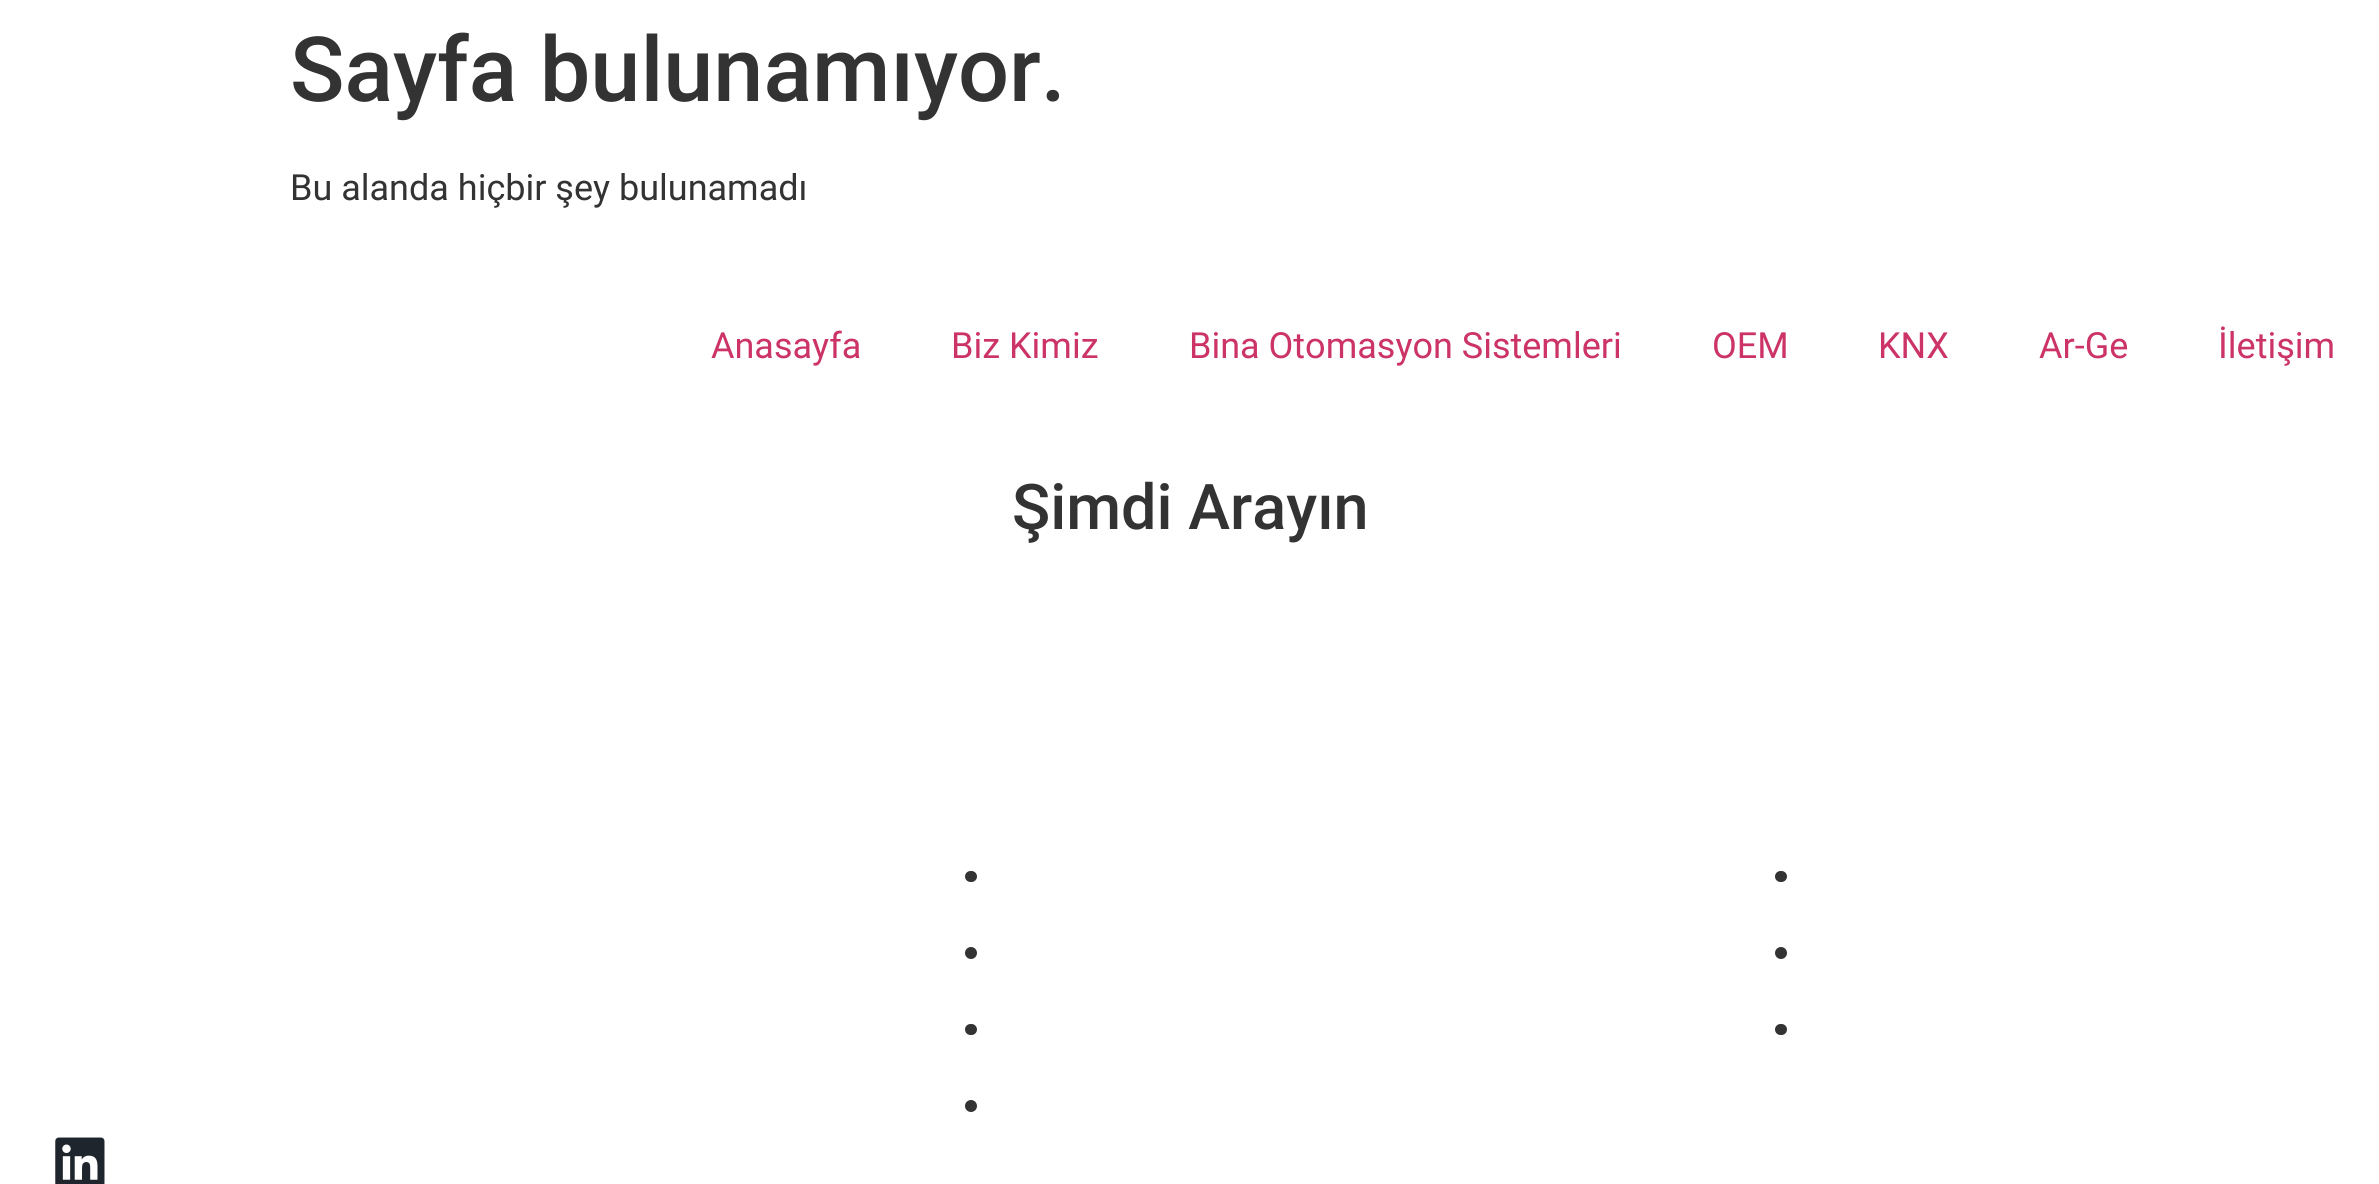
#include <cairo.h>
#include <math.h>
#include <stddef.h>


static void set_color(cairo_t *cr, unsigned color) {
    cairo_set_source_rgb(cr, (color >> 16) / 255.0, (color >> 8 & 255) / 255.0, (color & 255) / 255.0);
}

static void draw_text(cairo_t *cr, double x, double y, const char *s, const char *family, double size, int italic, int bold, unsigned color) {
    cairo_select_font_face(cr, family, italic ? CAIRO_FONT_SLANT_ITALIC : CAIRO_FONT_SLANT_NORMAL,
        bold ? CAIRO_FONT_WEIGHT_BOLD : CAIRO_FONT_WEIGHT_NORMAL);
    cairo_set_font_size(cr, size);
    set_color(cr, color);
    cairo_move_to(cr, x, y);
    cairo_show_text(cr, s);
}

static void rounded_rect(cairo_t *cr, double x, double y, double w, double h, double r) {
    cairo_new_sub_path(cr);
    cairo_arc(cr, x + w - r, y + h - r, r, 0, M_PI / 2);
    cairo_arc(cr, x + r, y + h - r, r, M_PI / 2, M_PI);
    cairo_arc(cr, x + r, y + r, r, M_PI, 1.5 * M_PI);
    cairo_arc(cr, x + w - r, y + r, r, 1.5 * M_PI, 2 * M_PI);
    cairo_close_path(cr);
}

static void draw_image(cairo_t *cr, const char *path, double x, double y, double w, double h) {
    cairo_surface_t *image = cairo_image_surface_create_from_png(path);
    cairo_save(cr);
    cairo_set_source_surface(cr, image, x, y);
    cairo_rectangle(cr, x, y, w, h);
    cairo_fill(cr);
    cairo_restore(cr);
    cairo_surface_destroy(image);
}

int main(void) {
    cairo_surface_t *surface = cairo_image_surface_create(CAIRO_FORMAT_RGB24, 2379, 1184);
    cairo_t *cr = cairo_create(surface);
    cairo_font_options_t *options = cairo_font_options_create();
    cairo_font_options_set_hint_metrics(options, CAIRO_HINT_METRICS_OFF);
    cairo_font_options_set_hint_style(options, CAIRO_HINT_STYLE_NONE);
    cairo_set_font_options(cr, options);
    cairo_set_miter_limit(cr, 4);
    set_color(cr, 0xFFFFFF);
    cairo_paint(cr);
    draw_text(cr, 290, 101, "Sayfa bulunamıyor.", "Roboto Medium", 90, 0, 0, 0x333333);
    draw_text(cr, 290, 200, "Bu alanda hiçbir şey bulunamadı", "Roboto", 36, 0, 0, 0x333333);
    draw_text(cr, 711, 358, "Anasayfa", "Roboto", 36, 0, 0, 0xCC3366);
    draw_text(cr, 951, 358, "Biz Kimiz", "Roboto", 36, 0, 0, 0xCC3366);
    draw_text(cr, 1189, 358, "Bina Otomasyon Sistemleri", "Roboto", 36, 0, 0, 0xCC3366);
    draw_text(cr, 1712, 358, "OEM", "Roboto", 36, 0, 0, 0xCC3366);
    draw_text(cr, 1878, 358, "KNX", "Roboto", 36, 0, 0, 0xCC3366);
    draw_text(cr, 2039, 358, "Ar-Ge", "Roboto", 36, 0, 0, 0xCC3366);
    draw_text(cr, 2218, 358, "İletişim", "Roboto", 36, 0, 0, 0xCC3366);
    draw_text(cr, 1012, 529, "Şimdi Arayın", "Roboto Medium", 63, 0, 0, 0x333333);
    rounded_rect(cr, 965, 871, 12, 11, 5.5);
    cairo_fill(cr);
    cairo_arc(cr, 971, 953, 6, 0, 2 * M_PI);
    cairo_fill(cr);
    rounded_rect(cr, 965, 1024, 12, 11, 5.5);
    cairo_fill(cr);
    cairo_arc(cr, 971, 1106, 6, 0, 2 * M_PI);
    cairo_fill(cr);
    rounded_rect(cr, 1775, 871, 12, 11, 5.5);
    cairo_fill(cr);
    cairo_arc(cr, 1781, 953, 6, 0, 2 * M_PI);
    cairo_fill(cr);
    rounded_rect(cr, 1775, 1024, 12, 11, 5.5);
    cairo_fill(cr);
    draw_image(cr, "assets/img1.png", 55, 1137, 50, 47);
    cairo_surface_write_to_png(surface, "output.png");
    cairo_font_options_destroy(options);
    cairo_destroy(cr);
    cairo_surface_destroy(surface);
    return 0;
}
